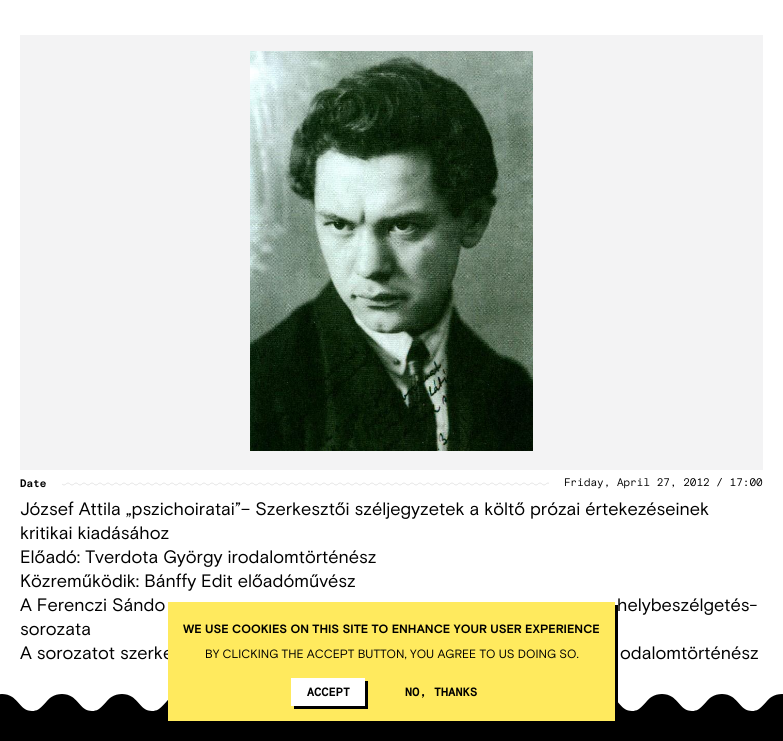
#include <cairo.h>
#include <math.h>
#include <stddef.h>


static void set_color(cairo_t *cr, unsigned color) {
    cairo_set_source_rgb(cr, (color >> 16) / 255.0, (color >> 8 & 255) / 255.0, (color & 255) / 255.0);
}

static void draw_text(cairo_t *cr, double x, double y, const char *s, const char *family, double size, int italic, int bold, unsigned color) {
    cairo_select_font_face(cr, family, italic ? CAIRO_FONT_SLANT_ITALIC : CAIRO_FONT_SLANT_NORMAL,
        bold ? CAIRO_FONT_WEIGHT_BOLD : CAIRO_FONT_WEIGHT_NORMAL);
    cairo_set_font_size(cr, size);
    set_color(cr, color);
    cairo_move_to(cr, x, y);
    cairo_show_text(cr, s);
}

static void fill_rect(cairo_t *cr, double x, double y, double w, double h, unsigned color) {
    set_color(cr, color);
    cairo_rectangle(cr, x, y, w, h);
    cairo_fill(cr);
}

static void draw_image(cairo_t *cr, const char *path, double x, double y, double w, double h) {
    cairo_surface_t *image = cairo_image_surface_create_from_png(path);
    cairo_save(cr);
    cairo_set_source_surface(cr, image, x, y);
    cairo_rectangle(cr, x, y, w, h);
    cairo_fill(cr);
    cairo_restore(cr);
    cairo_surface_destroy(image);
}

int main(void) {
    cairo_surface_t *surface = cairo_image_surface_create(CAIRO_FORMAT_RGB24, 783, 741);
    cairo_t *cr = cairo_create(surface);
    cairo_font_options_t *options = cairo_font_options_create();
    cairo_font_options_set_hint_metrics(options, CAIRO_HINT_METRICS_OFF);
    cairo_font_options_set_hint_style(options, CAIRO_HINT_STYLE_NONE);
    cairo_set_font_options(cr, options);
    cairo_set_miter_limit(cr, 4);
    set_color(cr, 0xFFFFFF);
    cairo_paint(cr);
    fill_rect(cr, 20, 35, 743, 435, 0xF3F3F4);
    draw_image(cr, "assets/img1.png", 250, 51, 283, 400);
    draw_text(cr, 20, 487, "Date", "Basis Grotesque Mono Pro", 11, 0, 1, 0x000000);
    draw_image(cr, "assets/img2.png", 62, 482, 487, 4);
    draw_text(cr, 564, 486, "Friday, April 27, 2012 / 17:00", "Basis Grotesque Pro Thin", 11, 0, 0, 0x000000);
    draw_text(cr, 20, 515, "József Attila „pszichoiratai”– Szerkesztői széljegyzetek a költő prózai értekezéseinek", "Basis Grotesque Pro", 18, 0, 0, 0x000000);
    draw_text(cr, 20, 539, "kritikai kiadásához", "Basis Grotesque Pro", 18, 0, 0, 0x000000);
    draw_text(cr, 20, 563, "Előadó: Tverdota György irodalomtörténész", "Basis Grotesque Pro", 18, 0, 0, 0x000000);
    draw_text(cr, 20, 587, "Közreműködik: Bánffy Edit előadóművész", "Basis Grotesque Pro", 18, 0, 0, 0x000000);
    draw_text(cr, 20, 611, "A Ferenczi Sándo", "Basis Grotesque Pro", 18, 0, 0, 0x000000);
    draw_text(cr, 617, 611, "helybeszélgetés-", "Basis Grotesque Pro", 18, 0, 0, 0x000000);
    draw_text(cr, 20, 635, "sorozata", "Basis Grotesque Pro", 18, 0, 0, 0x000000);
    draw_text(cr, 20, 659, "A sorozatot szerke", "Basis Grotesque Pro", 18, 0, 0, 0x000000);
    draw_text(cr, 620, 659, "odalomtörténész", "Basis Grotesque Pro", 18, 0, 0, 0x000000);
    fill_rect(cr, 0, 716, 783, 25, 0x000000);
    draw_image(cr, "assets/img3.png", 0, 694, 783, 22);
    cairo_new_path(cr);
    cairo_move_to(cr, 171, 721);
    cairo_line_to(cr, 171, 724);
    cairo_line_to(cr, 618, 724);
    cairo_line_to(cr, 618, 605);
    cairo_line_to(cr, 615, 605);
    cairo_line_to(cr, 615, 721);
    cairo_close_path(cr);
    cairo_fill(cr);
    fill_rect(cr, 168, 602, 447, 119, 0xFFEA5E);
    draw_text(cr, 183, 633, "WE USE COOKIES ON THIS SITE TO ENHANCE YOUR USER EXPERIENCE", "Basis Grotesque Pro", 12, 0, 1, 0x000000);
    draw_text(cr, 205, 658, "BY CLICKING THE ACCEPT BUTTON, YOU AGREE TO US DOING SO.", "Basis Grotesque Pro", 12, 0, 0, 0x000000);
    cairo_new_path(cr);
    cairo_move_to(cr, 294, 706);
    cairo_line_to(cr, 294, 709);
    cairo_line_to(cr, 368, 709);
    cairo_line_to(cr, 368, 681);
    cairo_line_to(cr, 365, 681);
    cairo_line_to(cr, 365, 706);
    cairo_close_path(cr);
    cairo_fill(cr);
    fill_rect(cr, 291, 678, 74, 28, 0xFFFFFF);
    draw_text(cr, 307, 696, "ACCEPT", "Basis Grotesque Mono Pro", 12, 0, 1, 0x000000);
    draw_text(cr, 405, 696, "NO, THANKS", "Basis Grotesque Mono Pro", 12, 0, 1, 0x000000);
    cairo_surface_write_to_png(surface, "output.png");
    cairo_font_options_destroy(options);
    cairo_destroy(cr);
    cairo_surface_destroy(surface);
    return 0;
}
